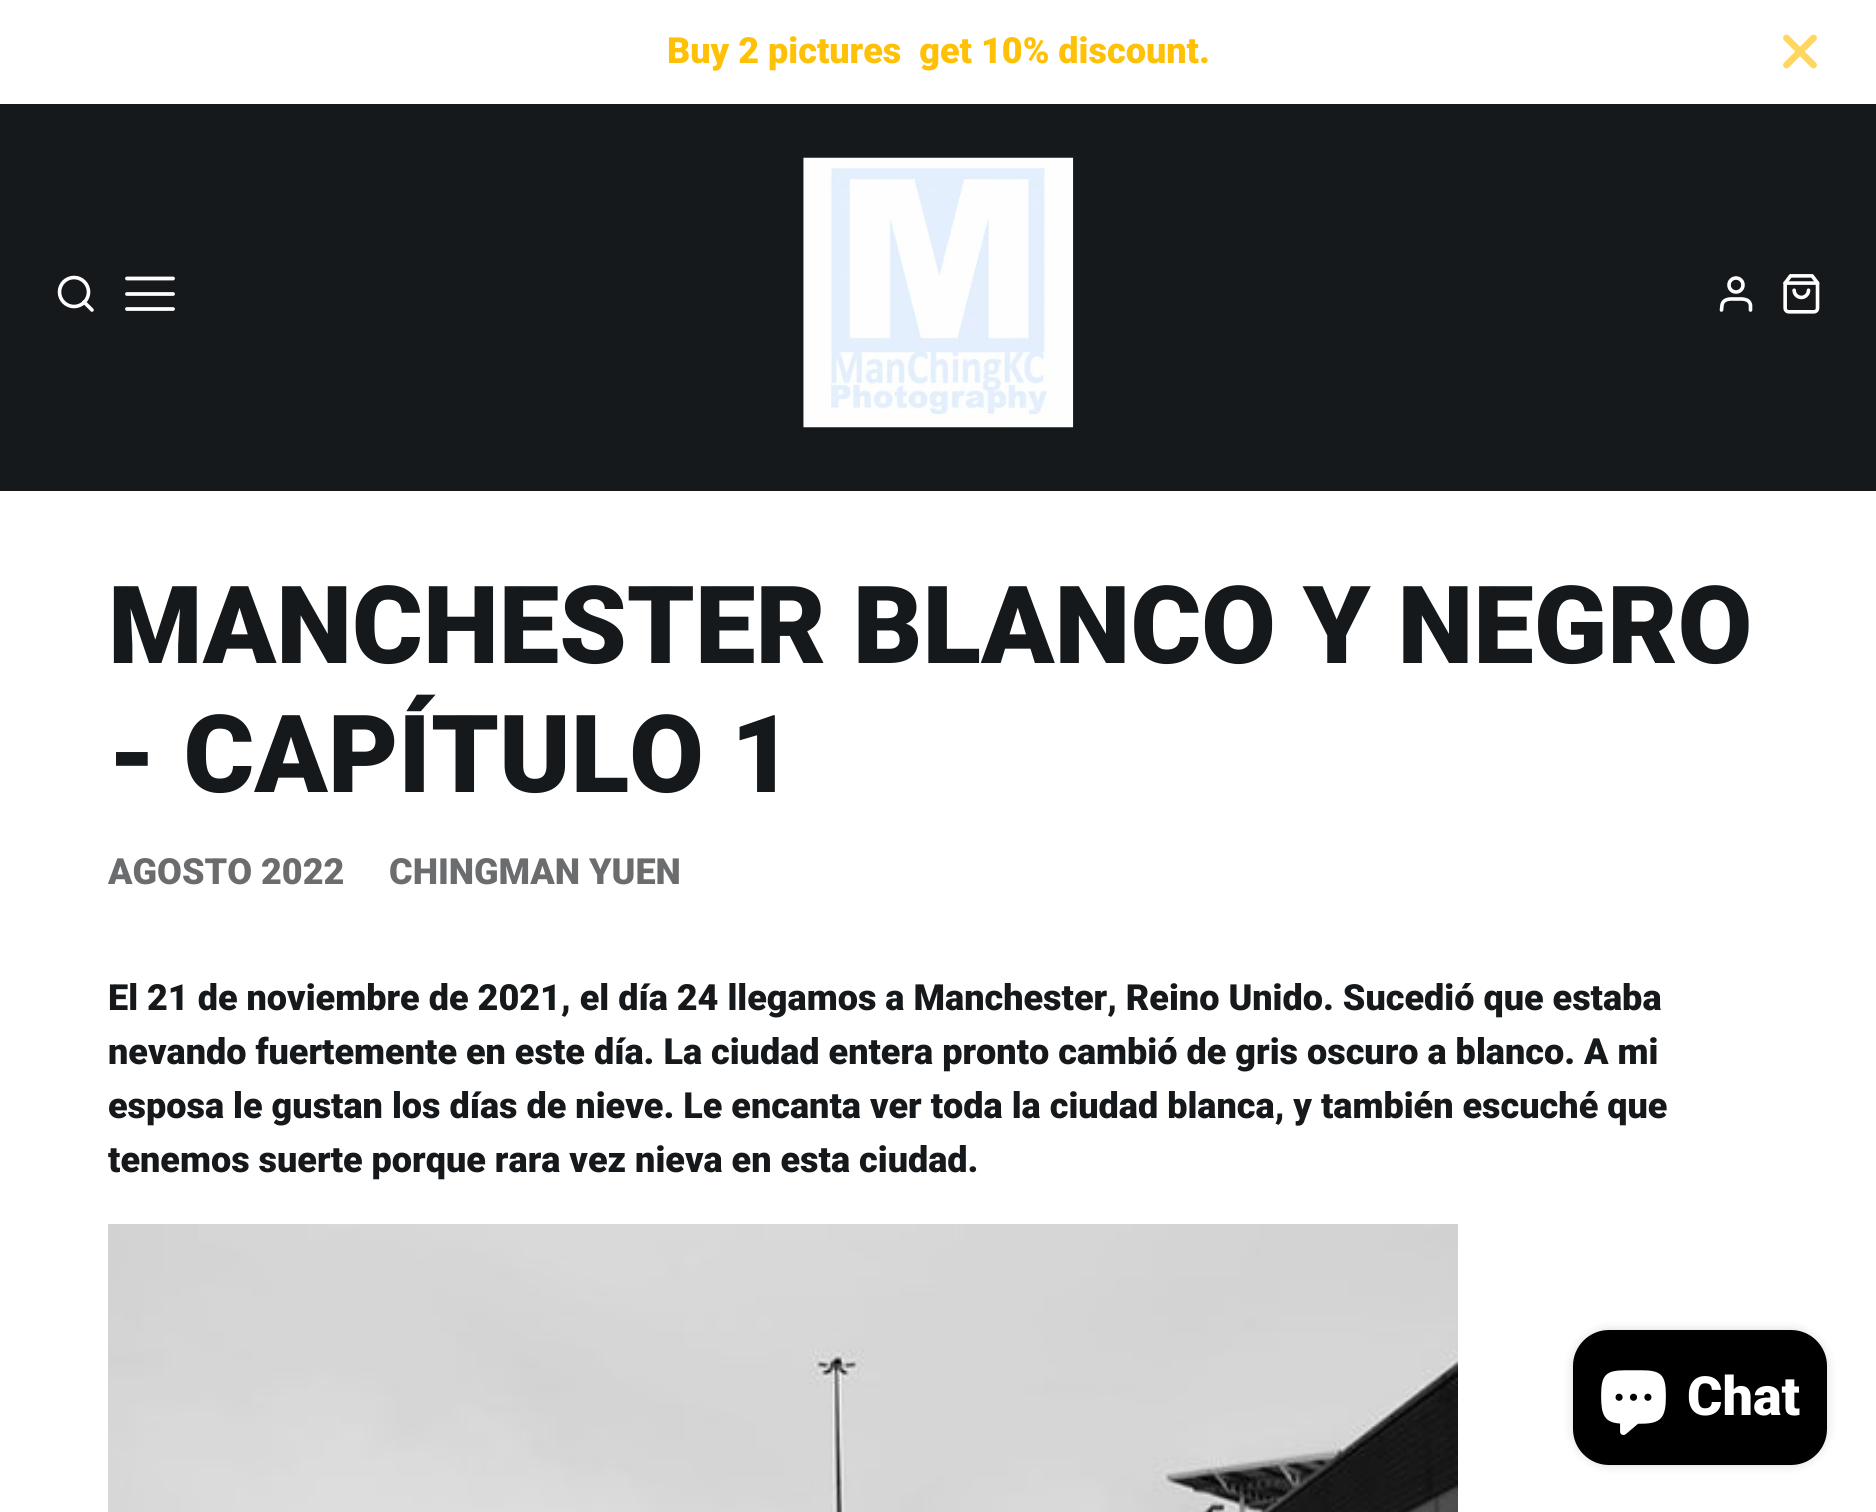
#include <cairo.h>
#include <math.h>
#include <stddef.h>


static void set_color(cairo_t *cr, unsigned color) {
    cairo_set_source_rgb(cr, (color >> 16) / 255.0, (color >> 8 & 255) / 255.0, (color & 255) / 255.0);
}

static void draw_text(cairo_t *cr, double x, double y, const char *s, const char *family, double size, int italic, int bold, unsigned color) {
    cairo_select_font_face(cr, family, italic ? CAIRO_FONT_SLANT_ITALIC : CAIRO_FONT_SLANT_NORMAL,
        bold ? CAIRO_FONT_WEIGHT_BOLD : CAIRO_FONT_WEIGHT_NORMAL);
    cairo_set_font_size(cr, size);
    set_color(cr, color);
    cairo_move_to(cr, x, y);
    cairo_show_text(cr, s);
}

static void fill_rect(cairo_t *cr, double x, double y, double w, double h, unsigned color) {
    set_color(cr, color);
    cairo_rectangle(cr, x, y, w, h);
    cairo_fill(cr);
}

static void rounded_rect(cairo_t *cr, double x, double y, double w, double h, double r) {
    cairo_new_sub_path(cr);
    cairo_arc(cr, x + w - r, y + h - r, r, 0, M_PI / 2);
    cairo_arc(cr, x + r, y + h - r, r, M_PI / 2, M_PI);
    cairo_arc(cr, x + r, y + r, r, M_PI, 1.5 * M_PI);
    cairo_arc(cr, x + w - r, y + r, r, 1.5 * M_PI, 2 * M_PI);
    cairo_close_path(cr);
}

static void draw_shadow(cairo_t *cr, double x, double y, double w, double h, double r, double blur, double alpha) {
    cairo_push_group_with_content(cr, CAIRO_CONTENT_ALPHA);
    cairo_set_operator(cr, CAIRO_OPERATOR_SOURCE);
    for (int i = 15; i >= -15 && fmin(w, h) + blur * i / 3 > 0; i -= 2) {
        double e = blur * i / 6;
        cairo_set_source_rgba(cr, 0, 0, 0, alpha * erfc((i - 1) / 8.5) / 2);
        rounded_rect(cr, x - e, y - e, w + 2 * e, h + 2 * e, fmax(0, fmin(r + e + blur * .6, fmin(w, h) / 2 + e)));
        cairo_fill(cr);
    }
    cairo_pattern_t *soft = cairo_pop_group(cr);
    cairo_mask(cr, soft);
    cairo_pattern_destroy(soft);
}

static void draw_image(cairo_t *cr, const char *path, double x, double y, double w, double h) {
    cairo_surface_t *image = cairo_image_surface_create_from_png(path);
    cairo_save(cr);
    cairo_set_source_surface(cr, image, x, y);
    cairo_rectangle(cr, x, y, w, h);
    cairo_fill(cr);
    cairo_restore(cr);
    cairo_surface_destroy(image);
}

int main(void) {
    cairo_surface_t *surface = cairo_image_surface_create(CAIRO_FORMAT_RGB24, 1876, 1512);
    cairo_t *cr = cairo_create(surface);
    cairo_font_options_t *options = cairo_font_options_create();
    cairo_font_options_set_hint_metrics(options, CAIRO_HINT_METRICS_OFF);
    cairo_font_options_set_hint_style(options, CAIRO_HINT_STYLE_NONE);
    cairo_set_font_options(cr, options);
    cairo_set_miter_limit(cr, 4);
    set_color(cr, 0xFFFFFF);
    cairo_paint(cr);
    draw_text(cr, 667, 63, "Buy 2 pictures  get 10% discount.", "Roboto Black", 36, 0, 0, 0xFFC107);
    cairo_new_path(cr);
    cairo_move_to(cr, 1813.5, 38);
    cairo_line_to(cr, 1786.5, 65);
    cairo_move_to(cr, 1786.5, 38);
    cairo_line_to(cr, 1813.5, 65);
    set_color(cr, 0xFFD760);
    cairo_set_line_width(cr, 6.8);
    cairo_set_line_cap(cr, CAIRO_LINE_CAP_ROUND);
    cairo_set_line_join(cr, CAIRO_LINE_JOIN_ROUND);
    cairo_stroke(cr);
    fill_rect(cr, 0, 104, 1876, 387, 0x16191B);
    cairo_arc(cr, 74, 292, 14.5, 0, 2 * M_PI);
    set_color(cr, 0xFFFFFF);
    cairo_set_line_width(cr, 3.6);
    cairo_set_line_cap(cr, CAIRO_LINE_CAP_BUTT);
    cairo_set_line_join(cr, CAIRO_LINE_JOIN_MITER);
    cairo_stroke(cr);
    cairo_new_path(cr);
    cairo_move_to(cr, 92, 310);
    cairo_line_to(cr, 84, 302);
    cairo_set_line_cap(cr, CAIRO_LINE_CAP_ROUND);
    cairo_set_line_join(cr, CAIRO_LINE_JOIN_ROUND);
    cairo_stroke(cr);
    cairo_new_path(cr);
    cairo_move_to(cr, 127, 294);
    cairo_line_to(cr, 173, 294);
    cairo_move_to(cr, 127, 278.5);
    cairo_line_to(cr, 173, 278.5);
    cairo_move_to(cr, 127, 309);
    cairo_line_to(cr, 173, 309);
    cairo_set_line_width(cr, 3.8);
    cairo_stroke(cr);
    draw_image(cr, "assets/img1.png", 803, 157, 271, 271);
    cairo_arc(cr, 1736, 285, 7, 0, 2 * M_PI);
    cairo_set_line_width(cr, 3.6);
    cairo_set_line_cap(cr, CAIRO_LINE_CAP_BUTT);
    cairo_set_line_join(cr, CAIRO_LINE_JOIN_MITER);
    cairo_stroke(cr);
    cairo_new_path(cr);
    cairo_move_to(cr, 1750.5, 310);
    cairo_line_to(cr, 1750.5, 305);
    cairo_curve_to(cr, 1749, 298, 1741.5, 299, 1736, 299);
    cairo_curve_to(cr, 1731, 299, 1723.5, 298, 1722, 305);
    cairo_line_to(cr, 1721.5, 310);
    cairo_set_line_cap(cr, CAIRO_LINE_CAP_ROUND);
    cairo_set_line_join(cr, CAIRO_LINE_JOIN_ROUND);
    cairo_stroke(cr);
    draw_image(cr, "assets/img2.png", 1783, 274, 37, 40);
    draw_text(cr, 108, 663, "MANCHESTER BLANCO Y NEGRO", "Roboto Black", 108, 0, 0, 0x16191B);
    draw_text(cr, 108, 792, "- CAPÍTULO 1", "Roboto Black", 108, 0, 0, 0x16191B);
    draw_text(cr, 108, 884, "AGOSTO 2022", "Roboto Black", 36, 0, 0, 0x6A6C6D);
    draw_text(cr, 389, 884, "CHINGMAN YUEN", "Roboto Black", 36, 0, 0, 0x6A6C6D);
    draw_text(cr, 108, 1010, "El 21 de noviembre de 2021, el día 24 llegamos a Manchester, Reino Unido. Sucedió que estaba", "Roboto Black", 36, 0, 0, 0x16191B);
    draw_text(cr, 108, 1064, "nevando fuertemente en este día. La ciudad entera pronto cambió de gris oscuro a blanco. A mi", "Roboto Black", 36, 0, 0, 0x16191B);
    draw_text(cr, 108, 1118, "esposa le gustan los días de nieve. Le encanta ver toda la ciudad blanca, y también escuché que", "Roboto Black", 36, 0, 0, 0x16191B);
    draw_text(cr, 108, 1172, "tenemos suerte porque rara vez nieva en esta ciudad.", "Roboto Black", 36, 0, 0, 0x16191B);
    draw_image(cr, "assets/img3.png", 108, 1224, 1350, 288);
    set_color(cr, 0x000000);
    draw_shadow(cr, 1573, 1330, 254, 135, 36, 5.5, 0.15);
    set_color(cr, 0x000000);
    rounded_rect(cr, 1573, 1330, 254, 135, 36);
    cairo_fill(cr);
    draw_image(cr, "assets/img4.png", 1601, 1370, 65, 65);
    draw_text(cr, 1687, 1415, "Chat", "Roboto Black", 54, 0, 0, 0xFFFFFF);
    cairo_surface_write_to_png(surface, "output.png");
    cairo_font_options_destroy(options);
    cairo_destroy(cr);
    cairo_surface_destroy(surface);
    return 0;
}
